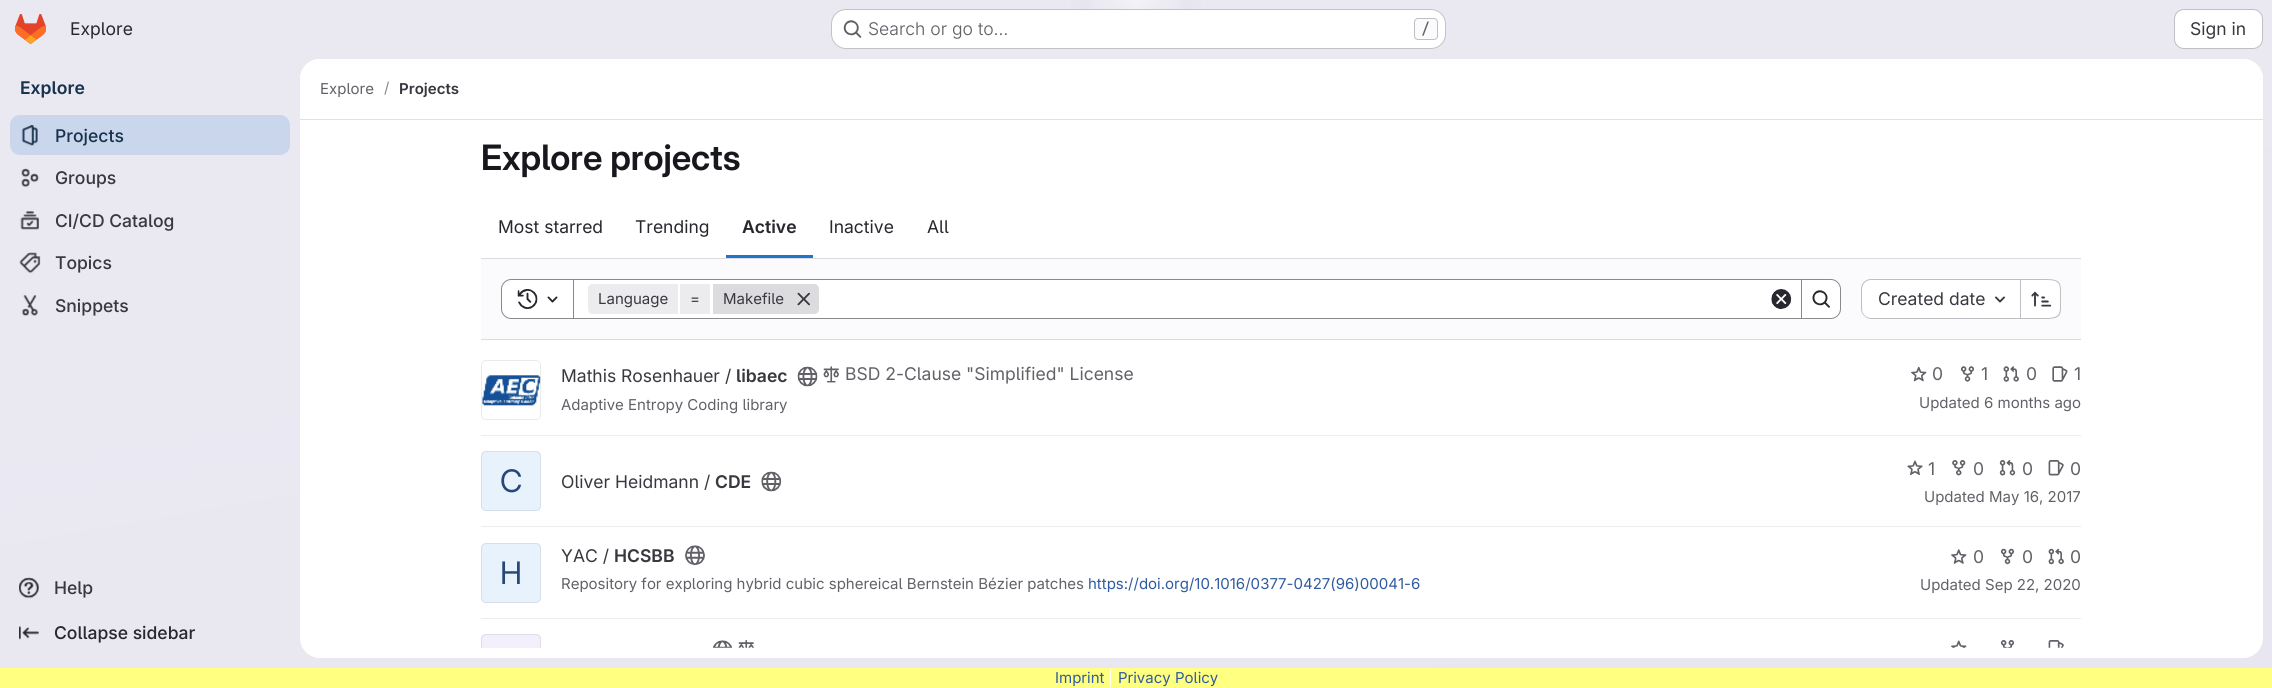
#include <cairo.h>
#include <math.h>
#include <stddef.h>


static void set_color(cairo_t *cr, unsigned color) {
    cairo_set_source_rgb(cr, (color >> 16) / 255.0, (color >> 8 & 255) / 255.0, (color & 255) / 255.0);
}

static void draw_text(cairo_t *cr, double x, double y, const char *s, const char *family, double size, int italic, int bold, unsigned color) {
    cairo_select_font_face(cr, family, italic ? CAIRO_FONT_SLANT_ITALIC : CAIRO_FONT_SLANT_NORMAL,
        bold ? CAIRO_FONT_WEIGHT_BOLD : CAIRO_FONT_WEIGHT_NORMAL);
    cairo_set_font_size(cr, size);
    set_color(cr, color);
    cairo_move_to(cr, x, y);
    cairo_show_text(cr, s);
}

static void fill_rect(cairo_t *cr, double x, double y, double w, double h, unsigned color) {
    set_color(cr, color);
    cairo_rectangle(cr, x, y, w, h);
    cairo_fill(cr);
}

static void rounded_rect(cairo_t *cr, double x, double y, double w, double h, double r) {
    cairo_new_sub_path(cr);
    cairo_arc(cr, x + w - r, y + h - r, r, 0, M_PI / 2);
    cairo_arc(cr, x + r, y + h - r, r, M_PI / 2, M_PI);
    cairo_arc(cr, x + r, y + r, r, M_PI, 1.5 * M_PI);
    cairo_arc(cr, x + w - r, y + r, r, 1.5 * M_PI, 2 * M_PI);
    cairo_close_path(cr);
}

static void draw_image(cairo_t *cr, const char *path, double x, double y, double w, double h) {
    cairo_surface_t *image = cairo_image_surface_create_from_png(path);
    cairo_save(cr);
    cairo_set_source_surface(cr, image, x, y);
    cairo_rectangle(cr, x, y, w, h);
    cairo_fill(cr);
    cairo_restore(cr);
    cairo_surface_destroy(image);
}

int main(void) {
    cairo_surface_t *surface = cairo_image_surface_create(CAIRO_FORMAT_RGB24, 2272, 688);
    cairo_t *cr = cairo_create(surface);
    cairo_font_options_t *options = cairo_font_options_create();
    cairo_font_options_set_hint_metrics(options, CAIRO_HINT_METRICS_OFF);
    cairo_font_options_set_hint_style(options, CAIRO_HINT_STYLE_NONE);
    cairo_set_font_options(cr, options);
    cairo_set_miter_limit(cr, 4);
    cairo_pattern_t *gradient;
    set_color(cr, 0xFFFFFF);
    cairo_paint(cr);
    gradient = cairo_pattern_create_linear(1229, 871, 1043, -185);
    cairo_pattern_add_color_stop_rgba(gradient, 0, 0.91, 0.902, 0.941, 1);
    cairo_pattern_add_color_stop_rgba(gradient, 0.7, 0.918, 0.914, 0.949, 1);
    cairo_set_source(cr, gradient);
    cairo_pattern_destroy(gradient);
    cairo_rectangle(cr, 0, 0, 2272, 668);
    cairo_fill(cr);
    gradient = cairo_pattern_create_radial(0, 0, 0, 0, 0, 1);
    cairo_pattern_set_matrix(gradient, &(cairo_matrix_t){1.0 / 1136, 0, 0, 1.0 / 689, -1.0 * 1136 / 1136, -1.0 * -1.2 / 689});
    cairo_pattern_add_color_stop_rgba(gradient, 0, 0.894, 0.886, 0.929, 1);
    cairo_pattern_add_color_stop_rgba(gradient, 0.08, 0.894, 0.886, 0.929, 0);
    cairo_set_source(cr, gradient);
    cairo_pattern_destroy(gradient);
    cairo_rectangle(cr, 1071, 0, 130, 38);
    cairo_fill(cr);
    gradient = cairo_pattern_create_radial(0, 0, 0, 0, 0, 1);
    cairo_pattern_set_matrix(gradient, &(cairo_matrix_t){1.0 / 1136, 0, 0, 1.0 / 689, -1.0 * 1136 / 1136, -1.0 * -1.2 / 689});
    cairo_pattern_add_color_stop_rgba(gradient, 0, 0.894, 0.886, 0.925, 1);
    cairo_pattern_add_color_stop_rgba(gradient, 0.06, 0.894, 0.886, 0.925, 0);
    cairo_set_source(cr, gradient);
    cairo_pattern_destroy(gradient);
    cairo_rectangle(cr, 1108, 2, 56, 7);
    cairo_fill(cr);
    gradient = cairo_pattern_create_radial(1136, -1.2, 0, 1136, -1.2, 1329);
    cairo_pattern_add_color_stop_rgba(gradient, 0, 1, 1, 1, 0.6);
    cairo_pattern_add_color_stop_rgba(gradient, 0.04, 1, 1, 1, 0);
    cairo_set_source(cr, gradient);
    cairo_pattern_destroy(gradient);
    cairo_rectangle(cr, 1091, 0, 90, 9);
    cairo_fill(cr);
    draw_image(cr, "assets/img1.png", 15, 14, 31, 30);
    draw_text(cr, 70, 35, "Explore", "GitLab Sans", 17.5, 0, 0, 0x28272D);
    set_color(cr, 0xFFFFFF);
    rounded_rect(cr, 831, 9, 615, 40, 15);
    cairo_fill(cr);
    rounded_rect(cr, 831.5, 9.5, 614, 39, 14.5);
    cairo_set_source_rgba(cr, 0.02, 0.02, 0.024, 0.24);
    cairo_set_line_width(cr, 1);
    cairo_stroke(cr);
    draw_image(cr, "assets/img2.png", 843, 20, 19, 18);
    draw_text(cr, 868, 35, "Search or go to…", "GitLab Sans Light", 17.5, 0, 0, 0x626168);
    set_color(cr, 0xFBFAFD);
    rounded_rect(cr, 1414.5, 18.5, 23, 21, 3.5);
    cairo_fill_preserve(cr);
    set_color(cr, 0xBFBFC3);
    cairo_stroke(cr);
    draw_text(cr, 1421, 34, "/", "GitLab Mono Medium", 15, 0, 0, 0x626168);
    set_color(cr, 0xFFFFFF);
    rounded_rect(cr, 2174.5, 9.5, 88, 39, 9.5);
    cairo_fill_preserve(cr);
    set_color(cr, 0xBFBFC3);
    cairo_stroke(cr);
    draw_text(cr, 2190, 35, "Sign in", "GitLab Sans", 17.5, 0, 0, 0x3A383F);
    draw_text(cr, 20, 94, "Explore", "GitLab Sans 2 SemiBold", 17.5, 0, 0, 0x18334E);
    set_color(cr, 0xCAD6EB);
    rounded_rect(cr, 10, 115, 280, 40, 10);
    cairo_fill(cr);
    draw_image(cr, "assets/img3.png", 21, 125, 17, 21);
    draw_text(cr, 55, 142, "Projects", "GitLab Sans Medium", 17.5, 0, 0, 0x18334E);
    draw_image(cr, "assets/img4.png", 21, 168, 18, 20);
    draw_text(cr, 55, 184, "Groups", "GitLab Sans Medium", 17.5, 0, 0, 0x3A383F);
    draw_image(cr, "assets/img5.png", 20, 211, 19, 19);
    draw_text(cr, 55, 227, "CI/CD Catalog", "GitLab Sans Medium", 17.5, 0, 0, 0x3A383F);
    draw_image(cr, "assets/img6.png", 19, 252, 22, 22);
    draw_text(cr, 55, 269, "Topics", "GitLab Sans Medium", 17.5, 0, 0, 0x3A383F);
    draw_image(cr, "assets/img7.png", 21, 295, 17, 21);
    draw_text(cr, 55, 312, "Snippets", "GitLab Sans Medium", 17.5, 0, 0, 0x3A383F);
    draw_image(cr, "assets/img8.png", 19, 577, 20, 22);
    draw_text(cr, 54, 594, "Help", "GitLab Sans Medium", 17.5, 0, 0, 0x3A383F);
    draw_image(cr, "assets/img9.png", 19, 626, 20, 14);
    draw_text(cr, 54, 639, "Collapse sidebar", "GitLab Sans Medium", 17.5, 0, 0, 0x28272D);
    set_color(cr, 0xFFFFFF);
    rounded_rect(cr, 300, 59, 1963, 599, 20);
    cairo_fill(cr);
    cairo_new_path(cr);
    cairo_move_to(cr, 320, 59);
    cairo_line_to(cr, 2243, 59);
    cairo_curve_to(cr, 2254, 59, 2263, 68, 2263, 79);
    cairo_line_to(cr, 2263, 120);
    cairo_line_to(cr, 300, 120);
    cairo_line_to(cr, 300, 79);
    cairo_curve_to(cr, 300, 68, 309, 59, 320, 59);
    cairo_close_path(cr);
    cairo_fill(cr);
    fill_rect(cr, 300, 119, 1963, 1, 0xE1DFEC);
    draw_text(cr, 320, 94, "Explore", "GitLab Sans", 15, 0, 0, 0x626168);
    draw_text(cr, 384, 93, "/", "GitLab Sans", 15, 0, 0, 0x89888D);
    draw_text(cr, 399, 94, "Projects", "GitLab Sans 2 SemiBold", 15, 0, 0, 0x3A383F);
    draw_text(cr, 481, 170, "Explore projects", "GitLab Sans SemiBold", 35, 0, 0, 0x18171D);
    draw_text(cr, 498, 233, "Most starred", "GitLab Sans", 17.5, 0, 0, 0x28272D);
    draw_text(cr, 635, 233, "Trending", "GitLab Sans", 17.5, 0, 0, 0x28272D);
    draw_text(cr, 742, 233, "Active", "GitLab Sans 2 SemiBold", 17.5, 0, 0, 0x28272D);
    fill_rect(cr, 726, 255, 87, 3, 0x1F75CB);
    draw_text(cr, 829, 233, "Inactive", "GitLab Sans", 17.5, 0, 0, 0x28272D);
    draw_text(cr, 927, 233, "All", "GitLab Sans", 17.5, 0, 0, 0x28272D);
    fill_rect(cr, 481, 259, 1600, 80, 0xFBFAFD);
    fill_rect(cr, 481, 258, 1600, 1, 0xDCDCDE);
    fill_rect(cr, 481, 339, 1600, 1, 0xDCDCDE);
    fill_rect(cr, 574, 280, 1227, 38, 0xFFFFFF);
    cairo_rectangle(cr, 573.5, 279.5, 1229, 39);
    set_color(cr, 0x89888D);
    cairo_stroke(cr);
    set_color(cr, 0xFFFFFF);
    cairo_new_path(cr);
    cairo_move_to(cr, 511, 279.5);
    cairo_line_to(cr, 573.5, 279.5);
    cairo_line_to(cr, 573.5, 318.5);
    cairo_line_to(cr, 511, 318.5);
    cairo_curve_to(cr, 506, 318.5, 501.5, 314, 501.5, 309);
    cairo_line_to(cr, 501.5, 289);
    cairo_curve_to(cr, 501.5, 284, 506, 279.5, 511, 279.5);
    cairo_close_path(cr);
    cairo_fill_preserve(cr);
    set_color(cr, 0x89888D);
    cairo_stroke(cr);
    draw_image(cr, "assets/img10.png", 517, 289, 21, 20);
    draw_image(cr, "assets/img11.png", 547, 296, 11, 7);
    set_color(cr, 0xECECEF);
    cairo_new_path(cr);
    cairo_move_to(cr, 593, 284);
    cairo_line_to(cr, 678, 284);
    cairo_line_to(cr, 678, 314);
    cairo_line_to(cr, 593, 314);
    cairo_curve_to(cr, 590, 314, 588, 312, 588, 309);
    cairo_line_to(cr, 588, 289);
    cairo_curve_to(cr, 588, 286, 590, 284, 593, 284);
    cairo_close_path(cr);
    cairo_fill(cr);
    draw_text(cr, 598, 304, "Language", "GitLab Sans", 15, 0, 0, 0x3A383F);
    fill_rect(cr, 680, 284, 30, 30, 0xECECEF);
    draw_text(cr, 690, 304, "=", "GitLab Sans", 15, 0, 0, 0x3A383F);
    set_color(cr, 0xDCDCDE);
    cairo_new_path(cr);
    cairo_move_to(cr, 713, 284);
    cairo_line_to(cr, 814, 284);
    cairo_curve_to(cr, 817, 284, 819, 286, 819, 289);
    cairo_line_to(cr, 819, 309);
    cairo_curve_to(cr, 819, 312, 817, 314, 814, 314);
    cairo_line_to(cr, 713, 314);
    cairo_close_path(cr);
    cairo_fill(cr);
    draw_text(cr, 723, 304, "Makefile", "GitLab Sans", 15, 0, 0, 0x3A383F);
    draw_image(cr, "assets/img12.png", 797, 292, 13, 14);
    draw_image(cr, "assets/img13.png", 1771, 289, 21, 20);
    set_color(cr, 0xFFFFFF);
    cairo_new_path(cr);
    cairo_move_to(cr, 1801.5, 279.5);
    cairo_line_to(cr, 1831, 279.5);
    cairo_curve_to(cr, 1836, 279.5, 1840.5, 284, 1840.5, 289);
    cairo_line_to(cr, 1840.5, 309);
    cairo_curve_to(cr, 1840.5, 314, 1836, 318.5, 1831, 318.5);
    cairo_line_to(cr, 1801.5, 318.5);
    cairo_close_path(cr);
    cairo_fill_preserve(cr);
    set_color(cr, 0x89888D);
    cairo_stroke(cr);
    draw_image(cr, "assets/img14.png", 1812, 290, 18, 18);
    set_color(cr, 0xFFFFFF);
    cairo_new_path(cr);
    cairo_move_to(cr, 1872, 280);
    cairo_line_to(cr, 2020, 280);
    cairo_line_to(cr, 2020, 318);
    cairo_line_to(cr, 1872, 318);
    cairo_curve_to(cr, 1867, 318, 1863, 314, 1863, 309);
    cairo_line_to(cr, 1863, 289);
    cairo_curve_to(cr, 1863, 284, 1867, 280, 1872, 280);
    cairo_close_path(cr);
    cairo_fill(cr);
    set_color(cr, 0xBFBFC3);
    cairo_set_fill_rule(cr, CAIRO_FILL_RULE_EVEN_ODD);
    cairo_new_path(cr);
    cairo_move_to(cr, 1871, 279);
    cairo_line_to(cr, 2020, 279);
    cairo_line_to(cr, 2020, 319);
    cairo_line_to(cr, 1871, 319);
    cairo_curve_to(cr, 1866, 319, 1861, 314, 1861, 309);
    cairo_line_to(cr, 1861, 289);
    cairo_curve_to(cr, 1861, 283, 1866, 279, 1871, 279);
    cairo_close_path(cr);
    cairo_move_to(cr, 1871, 280);
    cairo_line_to(cr, 2020, 280);
    cairo_line_to(cr, 2020, 318);
    cairo_line_to(cr, 1871, 318);
    cairo_curve_to(cr, 1866, 318, 1862, 314, 1862, 309);
    cairo_line_to(cr, 1862, 289);
    cairo_curve_to(cr, 1862, 284, 1866, 280, 1871, 280);
    cairo_close_path(cr);
    cairo_fill(cr);
    draw_text(cr, 1878, 305, "Created date", "GitLab Sans", 17.5, 0, 0, 0x3A383F);
    draw_image(cr, "assets/img15.png", 1995, 296, 10, 7);
    set_color(cr, 0xFFFFFF);
    cairo_new_path(cr);
    cairo_move_to(cr, 2021, 280);
    cairo_line_to(cr, 2051, 280);
    cairo_curve_to(cr, 2056, 280, 2060, 284, 2060, 289);
    cairo_line_to(cr, 2060, 309);
    cairo_curve_to(cr, 2060, 314, 2056, 318, 2051, 318);
    cairo_line_to(cr, 2021, 318);
    cairo_close_path(cr);
    cairo_fill(cr);
    set_color(cr, 0xBFBFC3);
    cairo_new_path(cr);
    cairo_move_to(cr, 2021, 279);
    cairo_line_to(cr, 2046, 279);
    cairo_curve_to(cr, 2063, 279, 2061, 285, 2061, 299);
    cairo_curve_to(cr, 2061, 313, 2063, 319, 2046, 319);
    cairo_line_to(cr, 2021, 319);
    cairo_close_path(cr);
    cairo_move_to(cr, 2021, 280);
    cairo_line_to(cr, 2046, 280);
    cairo_curve_to(cr, 2062, 280, 2060, 285, 2060, 299);
    cairo_curve_to(cr, 2060, 312, 2062, 318, 2046, 318);
    cairo_line_to(cr, 2021, 318);
    cairo_close_path(cr);
    cairo_fill(cr);
    fill_rect(cr, 2020, 279, 1, 40, 0xBFBFC3);
    draw_image(cr, "assets/img16.png", 2031, 291, 21, 16);
    fill_rect(cr, 481, 435, 1600, 1, 0xECECEF);
    draw_image(cr, "assets/img17.png", 481, 375, 60, 31);
    rounded_rect(cr, 481.5, 360.5, 59, 59, 4.5);
    cairo_set_source_rgba(cr, 0.02, 0.02, 0.024, 0.08);
    cairo_stroke(cr);
    draw_text(cr, 561, 382, "Mathis Rosenhauer /", "GitLab Sans", 17.5, 0, 0, 0x3A383F);
    draw_text(cr, 736, 382, "libaec", "GitLab Sans 2 SemiBold", 17.5, 0, 0, 0x3A383F);
    draw_image(cr, "assets/img18.png", 797, 366, 21, 21);
    draw_image(cr, "assets/img19.png", 823, 366, 16, 17);
    draw_text(cr, 845, 380, "BSD 2-Clause \"Simplified\" License", "GitLab Sans", 17.5, 0, 0, 0x626168);
    draw_text(cr, 561, 410, "Adaptive Entropy Coding library", "GitLab Sans", 15, 0, 0, 0x626168);
    draw_image(cr, "assets/img20.png", 1911, 366, 16, 16);
    draw_text(cr, 1932, 380, "0", "GitLab Sans", 17.5, 0, 0, 0x626168);
    draw_image(cr, "assets/img21.png", 1960, 366, 14, 16);
    draw_text(cr, 1981, 380, "1", "GitLab Sans", 17.5, 0, 0, 0x626168);
    draw_image(cr, "assets/img22.png", 2003, 366, 16, 16);
    draw_text(cr, 2026, 380, "0", "GitLab Sans", 17.5, 0, 0, 0x626168);
    draw_image(cr, "assets/img23.png", 2052, 366, 16, 16);
    draw_text(cr, 2074, 380, "1", "GitLab Sans", 17.5, 0, 0, 0x626168);
    draw_text(cr, 1919, 408, "Updated 6 months ago", "GitLab Sans", 15, 0, 0, 0x626168);
    fill_rect(cr, 481, 526, 1600, 1, 0xECECEF);
    set_color(cr, 0xE7F2FC);
    rounded_rect(cr, 481, 451, 60, 60, 5);
    cairo_fill(cr);
    rounded_rect(cr, 481.5, 451.5, 59, 59, 4.5);
    cairo_set_source_rgba(cr, 0.02, 0.02, 0.024, 0.08);
    cairo_stroke(cr);
    draw_text(cr, 500, 492, "C", "GitLab Sans 2", 31, 0, 0, 0x284779);
    draw_text(cr, 561, 488, "Oliver Heidmann /", "GitLab Sans", 17.5, 0, 0, 0x3A383F);
    draw_text(cr, 715, 488, "CDE", "GitLab Sans 2 SemiBold", 17.5, 0, 0, 0x3A383F);
    draw_image(cr, "assets/img24.png", 761, 471, 21, 21);
    draw_image(cr, "assets/img25.png", 1907, 460, 16, 15);
    draw_text(cr, 1928, 475, "1", "GitLab Sans", 17.5, 0, 0, 0x626168);
    draw_image(cr, "assets/img26.png", 1952, 460, 14, 16);
    draw_text(cr, 1973, 475, "0", "GitLab Sans", 17.5, 0, 0, 0x626168);
    draw_image(cr, "assets/img27.png", 1999, 460, 17, 16);
    draw_text(cr, 2022, 475, "0", "GitLab Sans", 17.5, 0, 0, 0x626168);
    draw_image(cr, "assets/img28.png", 2048, 460, 16, 16);
    draw_text(cr, 2070, 475, "0", "GitLab Sans", 17.5, 0, 0, 0x626168);
    draw_text(cr, 1924, 502, "Updated May 16, 2017", "GitLab Sans", 15, 0, 0, 0x626168);
    fill_rect(cr, 481, 618, 1600, 1, 0xECECEF);
    set_color(cr, 0xE7F2FC);
    rounded_rect(cr, 481, 543, 60, 60, 5);
    cairo_fill(cr);
    rounded_rect(cr, 481.5, 543.5, 59, 59, 4.5);
    cairo_set_source_rgba(cr, 0.02, 0.02, 0.024, 0.08);
    cairo_stroke(cr);
    draw_text(cr, 500, 584, "H", "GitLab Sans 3", 31, 0, 0, 0x284779);
    draw_text(cr, 561, 562, "YAC /", "GitLab Sans", 17.5, 0, 0, 0x3A383F);
    draw_text(cr, 614, 562, "HCSBB", "GitLab Sans 2 SemiBold", 17.5, 0, 0, 0x3A383F);
    draw_image(cr, "assets/img29.png", 685, 545, 20, 21);
    draw_text(cr, 561, 589, "Repository for exploring hybrid cubic sphereical Bernstein Bézier patches", "GitLab Sans", 15, 0, 0, 0x626168);
    draw_text(cr, 1088, 589, "https://doi.org/10.1016/0377-0427(96)00041-6", "GitLab Sans", 15, 0, 0, 0x2F5CA0);
    draw_image(cr, "assets/img30.png", 1951, 549, 16, 15);
    draw_text(cr, 1973, 563, "0", "GitLab Sans", 17.5, 0, 0, 0x626168);
    draw_image(cr, "assets/img31.png", 2000, 548, 15, 17);
    draw_text(cr, 2022, 563, "0", "GitLab Sans", 17.5, 0, 0, 0x626168);
    draw_image(cr, "assets/img32.png", 2048, 548, 16, 17);
    draw_text(cr, 2070, 563, "0", "GitLab Sans", 17.5, 0, 0, 0x626168);
    draw_text(cr, 1920, 590, "Updated Sep 22, 2020", "GitLab Sans", 15, 0, 0, 0x626168);
    set_color(cr, 0xF3EFFC);
    cairo_new_path(cr);
    cairo_move_to(cr, 486, 634);
    cairo_line_to(cr, 536, 634);
    cairo_curve_to(cr, 539, 634, 541, 636, 541, 639);
    cairo_line_to(cr, 541, 648);
    cairo_line_to(cr, 481, 648);
    cairo_line_to(cr, 481, 639);
    cairo_curve_to(cr, 481, 636, 483, 634, 486, 634);
    cairo_close_path(cr);
    cairo_fill(cr);
    cairo_save(cr);
    cairo_set_fill_rule(cr, CAIRO_FILL_RULE_WINDING);
    cairo_rectangle(cr, 300, 120, 1963, 528);
    cairo_clip(cr);
    cairo_set_source_rgba(cr, 0.02, 0.02, 0.024, 0.08);
    cairo_new_path(cr);
    cairo_move_to(cr, 486, 634);
    cairo_curve_to(cr, 483, 634, 481, 636, 481, 639);
    cairo_line_to(cr, 481, 658);
    cairo_line_to(cr, 482, 658);
    cairo_line_to(cr, 482, 639);
    cairo_curve_to(cr, 482, 637, 484, 635, 486, 635);
    cairo_line_to(cr, 536, 635);
    cairo_curve_to(cr, 538, 635, 540, 637, 540, 639);
    cairo_line_to(cr, 540, 658);
    cairo_line_to(cr, 541, 658);
    cairo_line_to(cr, 541, 639);
    cairo_curve_to(cr, 541, 636, 539, 634, 536, 634);
    cairo_close_path(cr);
    cairo_fill(cr);
    cairo_restore(cr);
    draw_image(cr, "assets/img33.png", 712, 640, 21, 8);
    draw_image(cr, "assets/img34.png", 738, 640, 16, 8);
    draw_image(cr, "assets/img35.png", 1951, 640, 16, 8);
    draw_image(cr, "assets/img36.png", 2000, 640, 14, 8);
    draw_image(cr, "assets/img37.png", 2048, 640, 16, 8);
    fill_rect(cr, 0, 668, 2272, 20, 0xFFFF80);
    draw_text(cr, 1055, 683, "Imprint", "GitLab Sans", 15, 0, 0, 0x2F5CA0);
    draw_text(cr, 1108, 683, "|", "GitLab Sans", 15, 0, 0, 0xFFFFFF);
    draw_text(cr, 1118, 683, "Privacy Policy", "GitLab Sans", 15, 0, 0, 0x2F5CA0);
    cairo_surface_write_to_png(surface, "output.png");
    cairo_font_options_destroy(options);
    cairo_destroy(cr);
    cairo_surface_destroy(surface);
    return 0;
}
